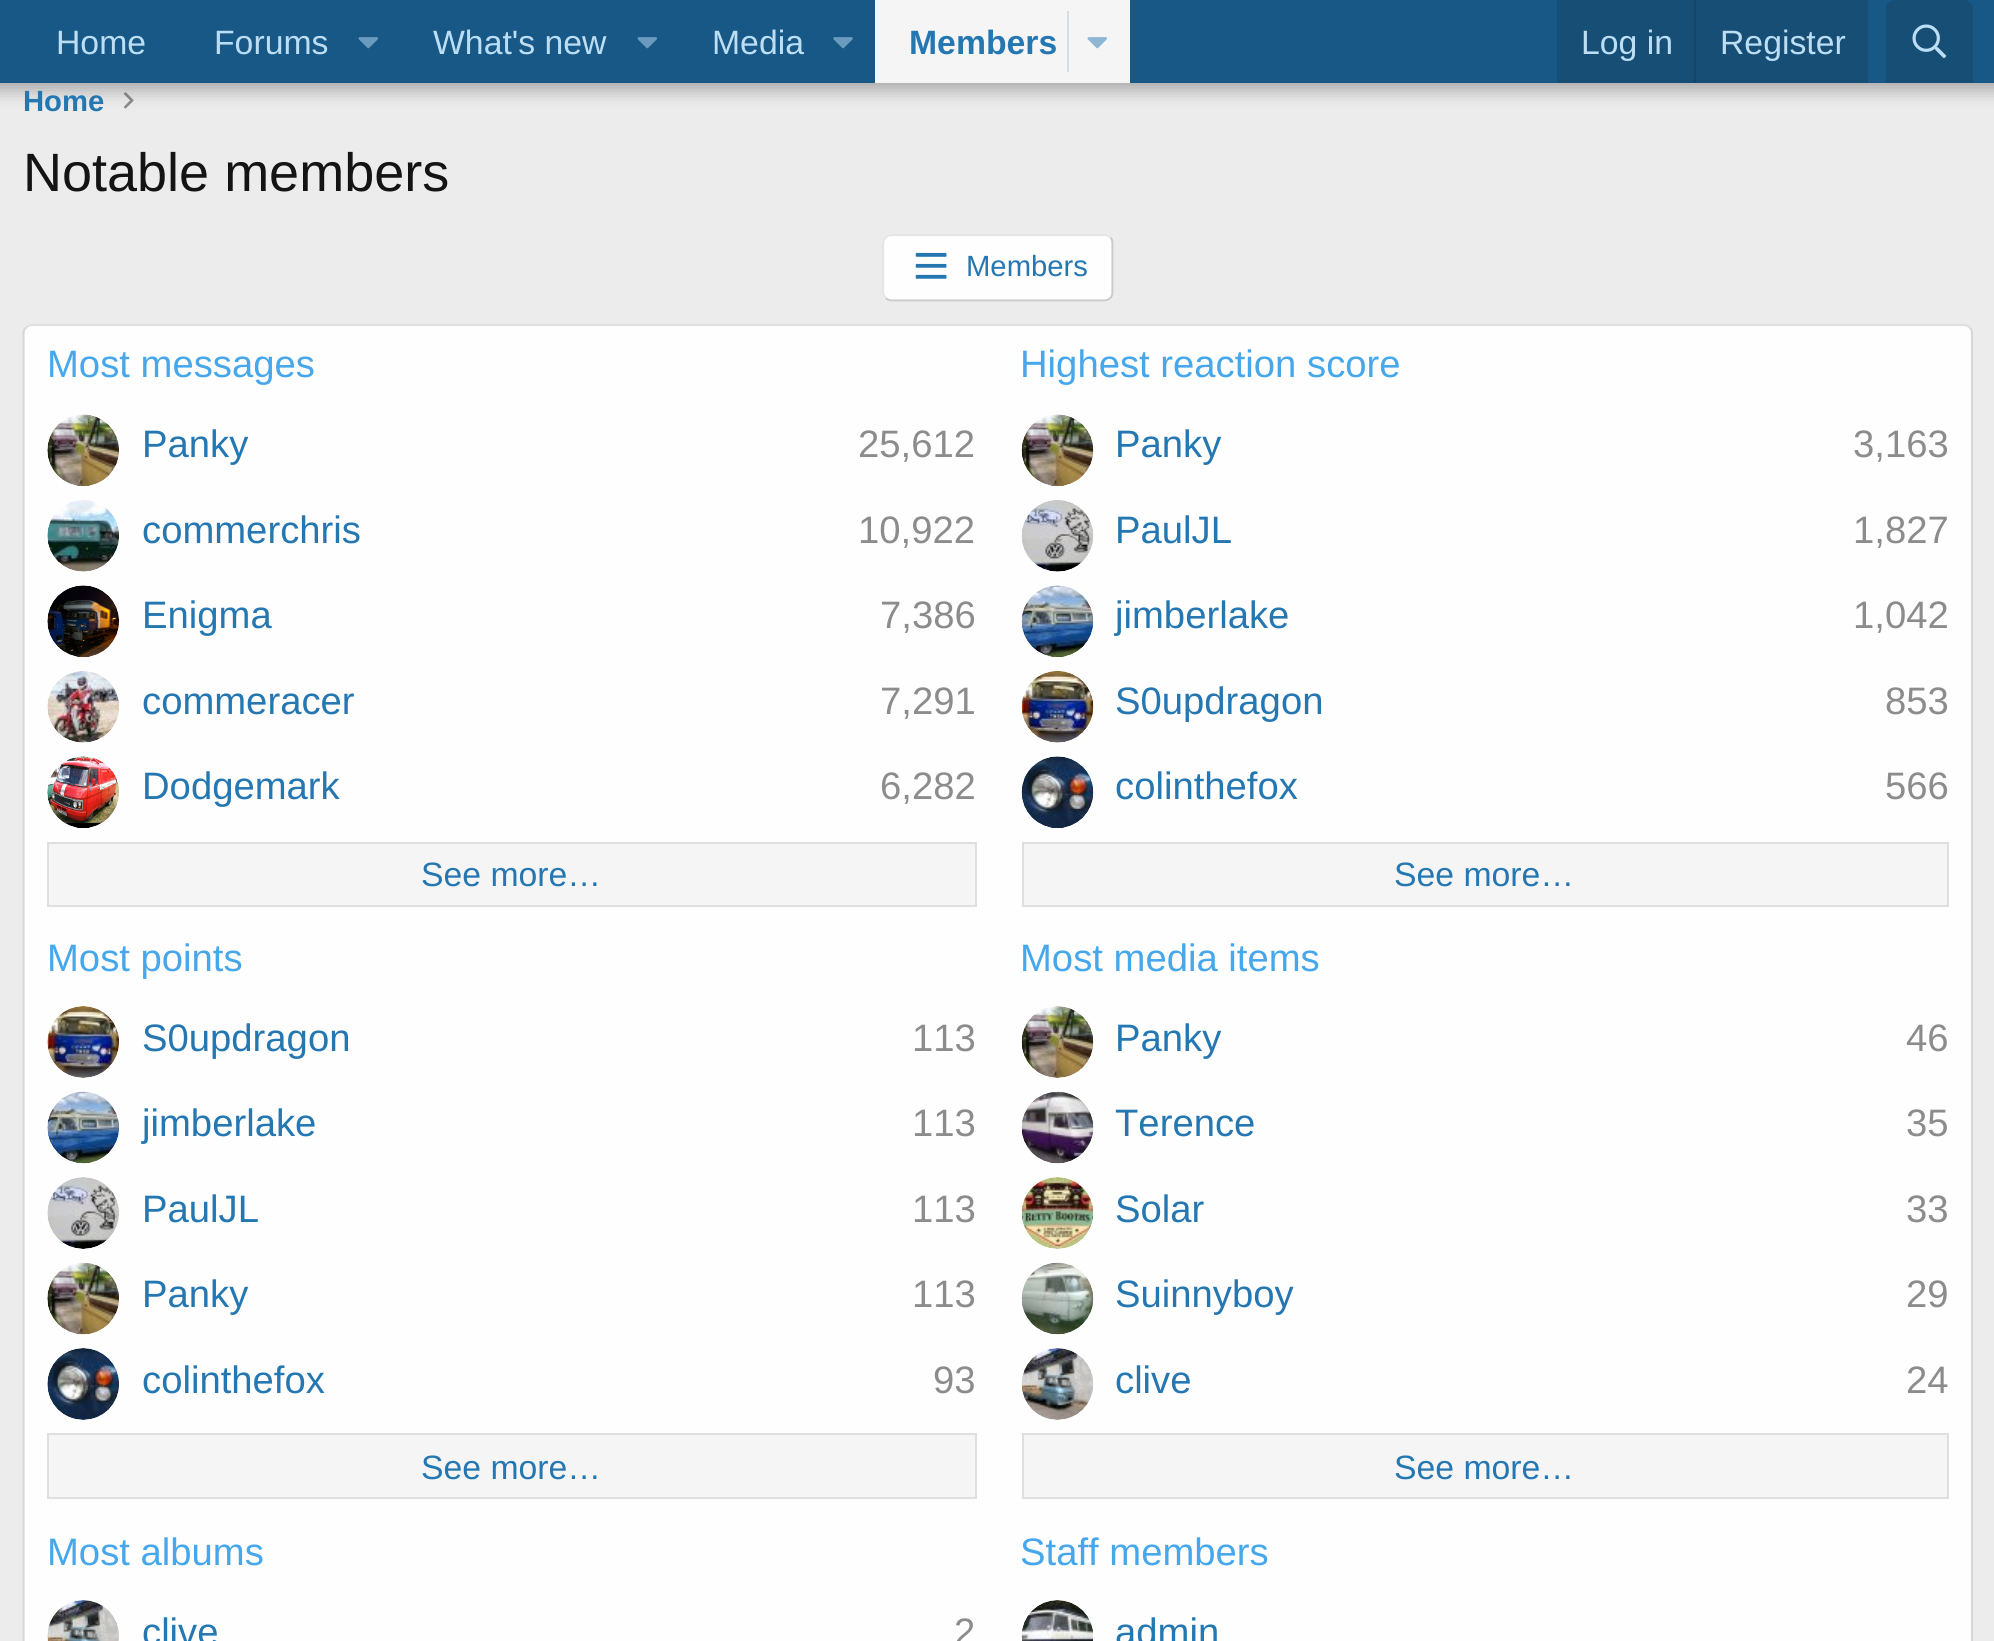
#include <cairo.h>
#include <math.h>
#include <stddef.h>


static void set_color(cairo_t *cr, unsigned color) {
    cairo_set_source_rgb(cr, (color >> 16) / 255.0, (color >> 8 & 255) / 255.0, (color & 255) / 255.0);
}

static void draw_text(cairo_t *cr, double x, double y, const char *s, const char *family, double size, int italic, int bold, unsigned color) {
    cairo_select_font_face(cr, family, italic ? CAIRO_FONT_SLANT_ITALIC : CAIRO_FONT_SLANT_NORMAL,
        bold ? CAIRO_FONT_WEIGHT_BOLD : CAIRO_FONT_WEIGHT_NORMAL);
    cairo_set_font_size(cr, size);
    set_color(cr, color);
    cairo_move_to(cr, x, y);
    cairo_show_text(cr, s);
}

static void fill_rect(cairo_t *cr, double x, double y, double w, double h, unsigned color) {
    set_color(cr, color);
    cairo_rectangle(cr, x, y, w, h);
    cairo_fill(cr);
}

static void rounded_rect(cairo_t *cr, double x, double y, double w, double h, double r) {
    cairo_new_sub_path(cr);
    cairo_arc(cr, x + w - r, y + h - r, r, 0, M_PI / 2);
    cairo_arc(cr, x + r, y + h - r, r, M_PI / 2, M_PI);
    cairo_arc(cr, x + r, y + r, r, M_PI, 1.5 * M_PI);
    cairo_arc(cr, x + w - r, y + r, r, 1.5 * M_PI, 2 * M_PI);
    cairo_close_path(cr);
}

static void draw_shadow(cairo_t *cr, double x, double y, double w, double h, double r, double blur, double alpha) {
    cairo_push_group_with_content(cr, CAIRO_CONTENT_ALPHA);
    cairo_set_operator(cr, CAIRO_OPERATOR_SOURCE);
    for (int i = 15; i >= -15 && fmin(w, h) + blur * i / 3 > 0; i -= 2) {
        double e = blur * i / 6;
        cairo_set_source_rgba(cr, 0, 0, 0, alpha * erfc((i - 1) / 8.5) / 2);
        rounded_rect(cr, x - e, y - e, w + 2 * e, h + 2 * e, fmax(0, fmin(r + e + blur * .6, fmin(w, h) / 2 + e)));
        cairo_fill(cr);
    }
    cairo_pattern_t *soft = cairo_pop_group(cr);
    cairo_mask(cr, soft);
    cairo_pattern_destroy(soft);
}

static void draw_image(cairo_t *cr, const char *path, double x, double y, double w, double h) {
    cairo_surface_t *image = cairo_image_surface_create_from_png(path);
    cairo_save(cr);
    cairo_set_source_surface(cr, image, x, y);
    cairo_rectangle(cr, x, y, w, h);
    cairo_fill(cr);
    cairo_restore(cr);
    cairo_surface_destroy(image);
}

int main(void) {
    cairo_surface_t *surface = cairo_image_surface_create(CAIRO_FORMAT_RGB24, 1994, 1641);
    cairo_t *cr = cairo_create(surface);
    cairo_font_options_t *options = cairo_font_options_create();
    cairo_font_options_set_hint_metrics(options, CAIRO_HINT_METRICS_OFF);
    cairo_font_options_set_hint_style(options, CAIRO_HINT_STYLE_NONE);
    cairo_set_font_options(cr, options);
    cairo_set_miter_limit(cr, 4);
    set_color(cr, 0xECECEC);
    cairo_paint(cr);
    draw_image(cr, "assets/img5.png", 123, 92, 11, 17);
    set_color(cr, 0x000000);
    draw_shadow(cr, -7, -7, 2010, 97, 0, 9, 0.3);
    fill_rect(cr, 0, 0, 1994, 83, 0x185886);
    draw_text(cr, 56, 54, "Home", "Liberation Sans", 33.75, 0, 0, 0xBCDEF5);
    draw_text(cr, 214, 54, "Forums", "Liberation Sans", 33.75, 0, 0, 0xBCDEF5);
    draw_image(cr, "assets/img1.png", 358, 37, 20, 12);
    draw_text(cr, 433, 54, "What's new", "Liberation Sans", 33.75, 0, 0, 0xBCDEF5);
    draw_image(cr, "assets/img1.png", 637, 37, 20, 12);
    draw_text(cr, 712, 54, "Media", "Liberation Sans", 33.75, 0, 0, 0xBCDEF5);
    draw_image(cr, "assets/img2.png", 833, 37, 20, 12);
    fill_rect(cr, 875, 0, 255, 83, 0xF5F5F5);
    draw_text(cr, 909, 54, "Members", "Liberation Sans", 33.75, 0, 1, 0x2577B1);
    fill_rect(cr, 1067, 11, 2, 61, 0xD1DFE9);
    draw_image(cr, "assets/img3.png", 1087, 37, 20, 12);
    fill_rect(cr, 1557, 0, 311, 83, 0x174E75);
    draw_text(cr, 1581, 54, "Log in", "Liberation Sans", 33.75, 0, 0, 0xBCDEF5);
    fill_rect(cr, 1694, 0, 2, 83, 0x174566);
    draw_text(cr, 1720, 54, "Register", "Liberation Sans", 33.75, 0, 0, 0xBCDEF5);
    set_color(cr, 0x174E75);
    cairo_new_path(cr);
    cairo_move_to(cr, 1895, 0);
    cairo_line_to(cr, 1964, 0);
    cairo_curve_to(cr, 1969, 0, 1973, 4, 1973, 9);
    cairo_line_to(cr, 1973, 83);
    cairo_line_to(cr, 1886, 83);
    cairo_line_to(cr, 1886, 9);
    cairo_curve_to(cr, 1886, 4, 1890, 0, 1895, 0);
    cairo_close_path(cr);
    cairo_fill(cr);
    draw_image(cr, "assets/img4.png", 1912, 24, 35, 35);
    draw_text(cr, 23, 111, "Home", "Liberation Sans", 29.25, 0, 1, 0x2577B1);
    draw_text(cr, 23, 191, "Notable members", "Liberation Sans", 54, 0, 0, 0x141414);
    set_color(cr, 0xFEFEFE);
    rounded_rect(cr, 882, 234, 232, 68, 9);
    cairo_fill(cr);
    cairo_new_path(cr);
    cairo_move_to(cr, 1110.5, 237.5);
    cairo_curve_to(cr, 1112, 239, 1112.5, 241, 1112.5, 243);
    cairo_line_to(cr, 1112.5, 292.5);
    cairo_curve_to(cr, 1112.5, 294.5, 1112, 296.5, 1110.5, 298);
    cairo_curve_to(cr, 1109, 299.5, 1107, 300.5, 1105, 300.5);
    cairo_line_to(cr, 891, 300.5);
    cairo_curve_to(cr, 889, 300.5, 887, 299.5, 885.5, 298);
    set_color(cr, 0xCBCBCB);
    cairo_set_line_width(cr, 2.2);
    cairo_stroke(cr);
    cairo_new_path(cr);
    cairo_move_to(cr, 885.5, 298);
    cairo_curve_to(cr, 884, 296.5, 883, 294.5, 883, 292.5);
    cairo_line_to(cr, 883, 243);
    cairo_curve_to(cr, 883, 241, 884, 239, 885.5, 237.5);
    cairo_curve_to(cr, 887, 236, 889, 235, 891, 235);
    cairo_line_to(cr, 1105, 235);
    cairo_curve_to(cr, 1107, 235, 1109, 236, 1110.5, 237.5);
    set_color(cr, 0xE5E5E5);
    cairo_stroke(cr);
    draw_image(cr, "assets/img6.png", 915, 252, 32, 27);
    draw_text(cr, 966, 276, "Members", "Liberation Sans", 29.25, 0, 0, 0x2577B1);
    set_color(cr, 0xFEFEFE);
    rounded_rect(cr, 23, 324, 1950, 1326, 9);
    cairo_fill(cr);
    cairo_new_path(cr);
    cairo_move_to(cr, 26, 327.5);
    cairo_curve_to(cr, 27.5, 326, 29.5, 325, 31.5, 325);
    cairo_line_to(cr, 1964, 325);
    cairo_curve_to(cr, 1966.5, 325, 1968.5, 326, 1970, 327.5);
    set_color(cr, 0xDFDFDF);
    cairo_stroke(cr);
    cairo_new_path(cr);
    cairo_move_to(cr, 1970, 327.5);
    cairo_curve_to(cr, 1971.5, 329, 1972, 331, 1972, 333);
    cairo_line_to(cr, 1972, 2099);
    cairo_curve_to(cr, 1972, 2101.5, 1971.5, 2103.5, 1970, 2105);
    set_color(cr, 0xD8D8D8);
    cairo_stroke(cr);
    cairo_new_path(cr);
    cairo_move_to(cr, 26, 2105);
    cairo_curve_to(cr, 24.5, 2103.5, 23.5, 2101.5, 23.5, 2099);
    cairo_line_to(cr, 23.5, 333);
    cairo_curve_to(cr, 23.5, 331, 24.5, 329, 26, 327.5);
    cairo_stroke(cr);
    draw_text(cr, 47, 377, "Most messages", "Liberation Sans", 38.25, 0, 0, 0x47A7EB);
    draw_image(cr, "assets/img7.png", 47, 414, 72, 72);
    draw_text(cr, 142, 457, "Panky", "Liberation Sans", 38.25, 0, 0, 0x2577B1);
    draw_text(cr, 858, 457, "25,612", "Liberation Sans", 38.25, 0, 0, 0x8C8C8C);
    draw_image(cr, "assets/img8.png", 47, 500, 72, 72);
    draw_text(cr, 142, 543, "commerchris", "Liberation Sans", 38.25, 0, 0, 0x2577B1);
    draw_text(cr, 858, 543, "10,922", "Liberation Sans", 38.25, 0, 0, 0x8C8C8C);
    draw_image(cr, "assets/img9.png", 47, 585, 72, 72);
    draw_text(cr, 142, 628, "Enigma", "Liberation Sans", 38.25, 0, 0, 0x2577B1);
    draw_text(cr, 880, 628, "7,386", "Liberation Sans", 38.25, 0, 0, 0x8C8C8C);
    draw_image(cr, "assets/img10.png", 47, 671, 72, 72);
    draw_text(cr, 142, 714, "commeracer", "Liberation Sans", 38.25, 0, 0, 0x2577B1);
    draw_text(cr, 880, 714, "7,291", "Liberation Sans", 38.25, 0, 0, 0x8C8C8C);
    draw_image(cr, "assets/img11.png", 47, 756, 72, 72);
    draw_text(cr, 142, 799, "Dodgemark", "Liberation Sans", 38.25, 0, 0, 0x2577B1);
    draw_text(cr, 880, 799, "6,282", "Liberation Sans", 38.25, 0, 0, 0x8C8C8C);
    set_color(cr, 0xF5F5F5);
    cairo_rectangle(cr, 48, 843, 928, 63);
    cairo_fill_preserve(cr);
    set_color(cr, 0xDFDFDF);
    cairo_set_line_width(cr, 2);
    cairo_stroke(cr);
    draw_text(cr, 421, 886, "See more…", "Liberation Sans", 33.75, 0, 0, 0x2577B1);
    draw_text(cr, 1020, 377, "Highest reaction score", "Liberation Sans", 38.25, 0, 0, 0x47A7EB);
    draw_image(cr, "assets/img12.png", 1021, 414, 73, 72);
    draw_text(cr, 1115, 457, "Panky", "Liberation Sans", 38.25, 0, 0, 0x2577B1);
    draw_text(cr, 1853, 457, "3,163", "Liberation Sans", 38.25, 0, 0, 0x8C8C8C);
    draw_image(cr, "assets/img13.png", 1021, 500, 73, 72);
    draw_text(cr, 1115, 543, "PaulJL", "Liberation Sans", 38.25, 0, 0, 0x2577B1);
    draw_text(cr, 1853, 543, "1,827", "Liberation Sans", 38.25, 0, 0, 0x8C8C8C);
    draw_image(cr, "assets/img14.png", 1021, 585, 73, 72);
    draw_text(cr, 1115, 628, "jimberlake", "Liberation Sans", 38.25, 0, 0, 0x2577B1);
    draw_text(cr, 1853, 628, "1,042", "Liberation Sans", 38.25, 0, 0, 0x8C8C8C);
    draw_image(cr, "assets/img15.png", 1021, 671, 73, 72);
    draw_text(cr, 1115, 714, "S0updragon", "Liberation Sans", 38.25, 0, 0, 0x2577B1);
    draw_text(cr, 1885, 714, "853", "Liberation Sans", 38.25, 0, 0, 0x8C8C8C);
    draw_image(cr, "assets/img16.png", 1021, 756, 73, 72);
    draw_text(cr, 1115, 799, "colinthefox", "Liberation Sans", 38.25, 0, 0, 0x2577B1);
    draw_text(cr, 1885, 799, "566", "Liberation Sans", 38.25, 0, 0, 0x8C8C8C);
    set_color(cr, 0xF5F5F5);
    cairo_rectangle(cr, 1023, 843, 925, 63);
    cairo_fill_preserve(cr);
    set_color(cr, 0xDFDFDF);
    cairo_stroke(cr);
    draw_text(cr, 1394, 886, "See more…", "Liberation Sans", 33.75, 0, 0, 0x2577B1);
    draw_text(cr, 47, 971, "Most points", "Liberation Sans", 38.25, 0, 0, 0x47A7EB);
    draw_image(cr, "assets/img17.png", 47, 1006, 72, 72);
    draw_text(cr, 142, 1051, "S0updragon", "Liberation Sans", 38.25, 0, 0, 0x2577B1);
    draw_text(cr, 912, 1051, "113", "Liberation Sans", 38.25, 0, 0, 0x8C8C8C);
    draw_image(cr, "assets/img18.png", 47, 1091, 72, 73);
    draw_text(cr, 142, 1136, "jimberlake", "Liberation Sans", 38.25, 0, 0, 0x2577B1);
    draw_text(cr, 912, 1136, "113", "Liberation Sans", 38.25, 0, 0, 0x8C8C8C);
    draw_image(cr, "assets/img19.png", 47, 1177, 72, 72);
    draw_text(cr, 142, 1222, "PaulJL", "Liberation Sans", 38.25, 0, 0, 0x2577B1);
    draw_text(cr, 912, 1222, "113", "Liberation Sans", 38.25, 0, 0, 0x8C8C8C);
    draw_image(cr, "assets/img20.png", 47, 1262, 72, 73);
    draw_text(cr, 142, 1307, "Panky", "Liberation Sans", 38.25, 0, 0, 0x2577B1);
    draw_text(cr, 912, 1307, "113", "Liberation Sans", 38.25, 0, 0, 0x8C8C8C);
    draw_image(cr, "assets/img21.png", 47, 1348, 72, 72);
    draw_text(cr, 142, 1393, "colinthefox", "Liberation Sans", 38.25, 0, 0, 0x2577B1);
    draw_text(cr, 933, 1393, "93", "Liberation Sans", 38.25, 0, 0, 0x8C8C8C);
    set_color(cr, 0xF5F5F5);
    cairo_rectangle(cr, 48, 1434, 928, 64);
    cairo_fill_preserve(cr);
    set_color(cr, 0xDFDFDF);
    cairo_stroke(cr);
    draw_text(cr, 421, 1479, "See more…", "Liberation Sans", 33.75, 0, 0, 0x2577B1);
    draw_text(cr, 1020, 971, "Most media items", "Liberation Sans", 38.25, 0, 0, 0x47A7EB);
    draw_image(cr, "assets/img22.png", 1021, 1006, 73, 72);
    draw_text(cr, 1115, 1051, "Panky", "Liberation Sans", 38.25, 0, 0, 0x2577B1);
    draw_text(cr, 1906, 1051, "46", "Liberation Sans", 38.25, 0, 0, 0x8C8C8C);
    draw_image(cr, "assets/img23.png", 1021, 1091, 73, 73);
    draw_text(cr, 1115, 1136, "Terence", "Liberation Sans", 38.25, 0, 0, 0x2577B1);
    draw_text(cr, 1906, 1136, "35", "Liberation Sans", 38.25, 0, 0, 0x8C8C8C);
    draw_image(cr, "assets/img24.png", 1021, 1177, 73, 72);
    draw_text(cr, 1115, 1222, "Solar", "Liberation Sans", 38.25, 0, 0, 0x2577B1);
    draw_text(cr, 1906, 1222, "33", "Liberation Sans", 38.25, 0, 0, 0x8C8C8C);
    draw_image(cr, "assets/img25.png", 1021, 1262, 73, 73);
    draw_text(cr, 1115, 1307, "Suinnyboy", "Liberation Sans", 38.25, 0, 0, 0x2577B1);
    draw_text(cr, 1906, 1307, "29", "Liberation Sans", 38.25, 0, 0, 0x8C8C8C);
    draw_image(cr, "assets/img26.png", 1021, 1348, 73, 72);
    draw_text(cr, 1115, 1393, "clive", "Liberation Sans", 38.25, 0, 0, 0x2577B1);
    draw_text(cr, 1906, 1393, "24", "Liberation Sans", 38.25, 0, 0, 0x8C8C8C);
    set_color(cr, 0xF5F5F5);
    cairo_rectangle(cr, 1023, 1434, 925, 64);
    cairo_fill_preserve(cr);
    set_color(cr, 0xDFDFDF);
    cairo_stroke(cr);
    draw_text(cr, 1394, 1479, "See more…", "Liberation Sans", 33.75, 0, 0, 0x2577B1);
    draw_text(cr, 47, 1565, "Most albums", "Liberation Sans", 38.25, 0, 0, 0x47A7EB);
    draw_image(cr, "assets/img27.png", 47, 1600, 72, 41);
    draw_text(cr, 142, 1645, "clive", "Liberation Sans", 38.25, 0, 0, 0x2577B1);
    draw_text(cr, 954, 1645, "2", "Liberation Sans", 38.25, 0, 0, 0x8C8C8C);
    draw_text(cr, 1020, 1565, "Staff members", "Liberation Sans", 38.25, 0, 0, 0x47A7EB);
    draw_image(cr, "assets/img28.png", 1021, 1600, 72, 41);
    draw_text(cr, 1115, 1645, "admin", "Liberation Sans", 38.25, 0, 0, 0x2577B1);
    cairo_surface_write_to_png(surface, "output.png");
    cairo_font_options_destroy(options);
    cairo_destroy(cr);
    cairo_surface_destroy(surface);
    return 0;
}
